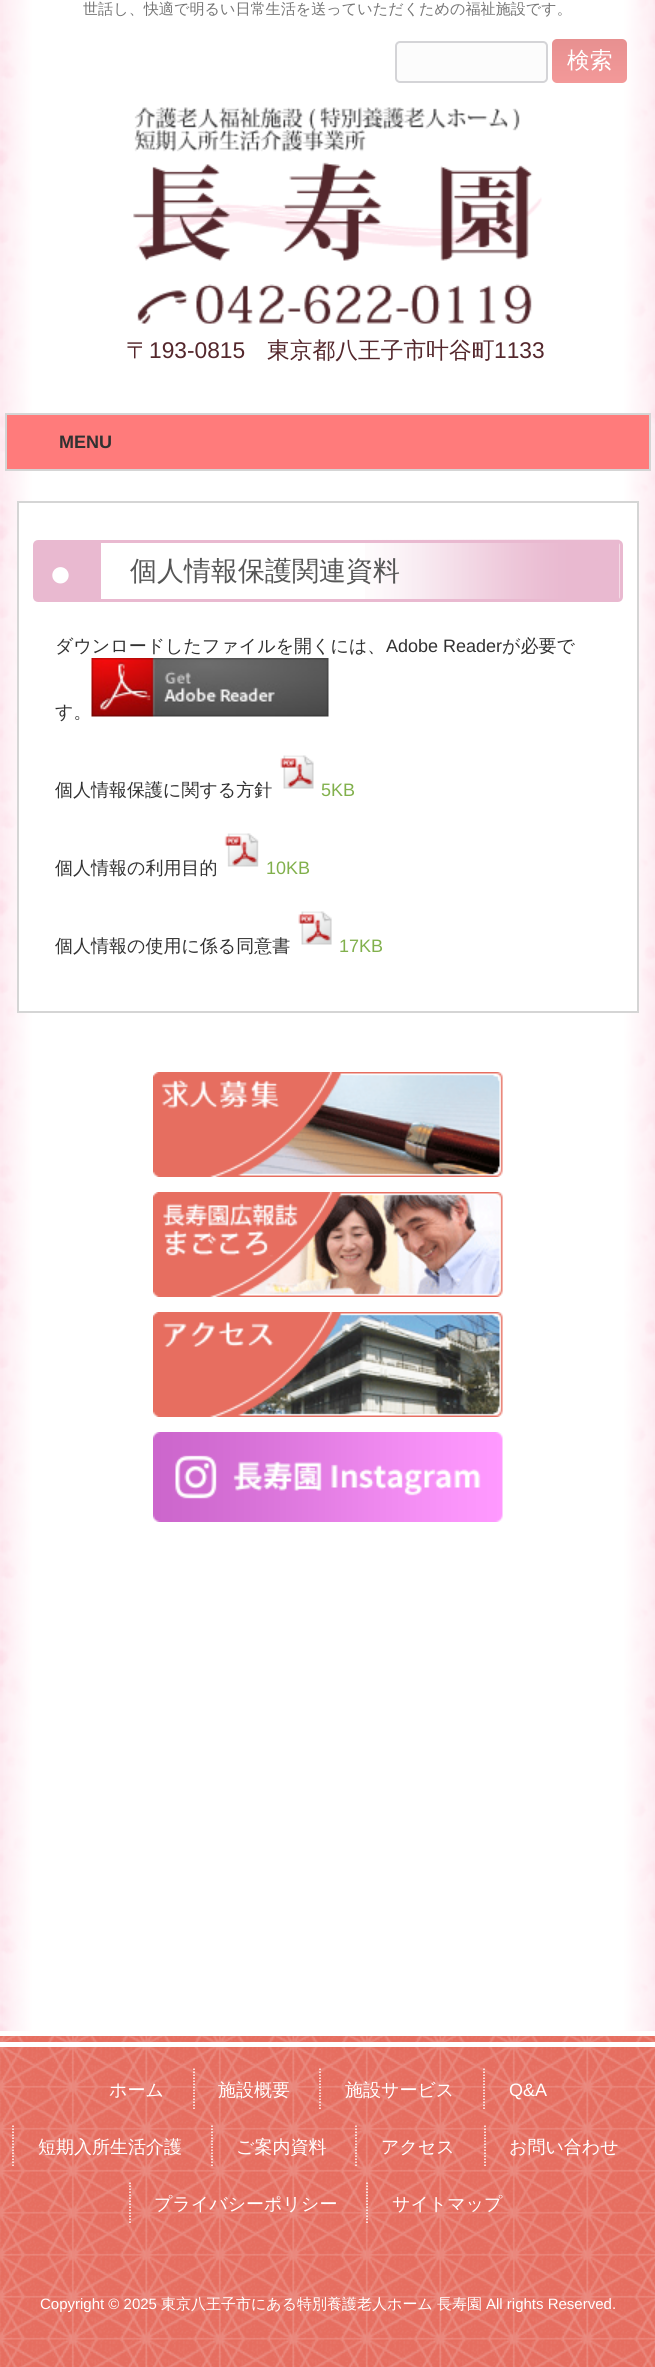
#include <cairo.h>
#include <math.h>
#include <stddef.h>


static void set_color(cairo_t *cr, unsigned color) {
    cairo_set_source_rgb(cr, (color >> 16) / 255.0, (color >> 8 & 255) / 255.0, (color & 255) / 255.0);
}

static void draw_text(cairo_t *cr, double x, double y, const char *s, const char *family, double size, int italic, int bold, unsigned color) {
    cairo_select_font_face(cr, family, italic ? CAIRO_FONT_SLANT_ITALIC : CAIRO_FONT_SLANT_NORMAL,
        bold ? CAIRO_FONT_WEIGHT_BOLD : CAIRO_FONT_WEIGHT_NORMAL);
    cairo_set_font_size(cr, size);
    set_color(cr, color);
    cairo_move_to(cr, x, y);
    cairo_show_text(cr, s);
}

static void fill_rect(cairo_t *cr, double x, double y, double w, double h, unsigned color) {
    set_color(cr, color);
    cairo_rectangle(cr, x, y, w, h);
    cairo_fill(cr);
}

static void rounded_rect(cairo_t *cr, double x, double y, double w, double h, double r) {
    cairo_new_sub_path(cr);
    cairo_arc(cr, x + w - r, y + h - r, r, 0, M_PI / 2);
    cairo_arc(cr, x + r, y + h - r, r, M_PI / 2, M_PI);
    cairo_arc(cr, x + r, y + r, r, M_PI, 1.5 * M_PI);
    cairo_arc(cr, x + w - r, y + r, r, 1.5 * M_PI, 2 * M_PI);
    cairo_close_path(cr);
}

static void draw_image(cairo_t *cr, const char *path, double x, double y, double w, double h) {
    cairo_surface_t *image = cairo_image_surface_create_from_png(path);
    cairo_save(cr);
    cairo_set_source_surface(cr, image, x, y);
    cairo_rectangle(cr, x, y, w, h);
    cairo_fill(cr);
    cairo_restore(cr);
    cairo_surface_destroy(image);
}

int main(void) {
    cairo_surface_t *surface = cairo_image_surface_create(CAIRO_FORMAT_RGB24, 655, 2367);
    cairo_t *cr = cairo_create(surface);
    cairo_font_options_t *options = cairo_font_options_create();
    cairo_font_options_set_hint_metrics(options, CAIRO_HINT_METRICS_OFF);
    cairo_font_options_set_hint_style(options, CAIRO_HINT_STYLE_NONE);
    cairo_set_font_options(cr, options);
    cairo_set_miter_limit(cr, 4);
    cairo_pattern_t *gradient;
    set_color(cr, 0xFCDBE6);
    cairo_paint(cr);
    draw_image(cr, "assets/img1.png", 0, 0, 655, 2031);
    gradient = cairo_pattern_create_linear(0, 989, 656, 989);
    cairo_pattern_add_color_stop_rgba(gradient, 0, 1, 1, 1, 0);
    cairo_pattern_add_color_stop_rgba(gradient, 0.05, 1, 1, 1, 1);
    cairo_pattern_add_color_stop_rgba(gradient, 0.95, 1, 1, 1, 1);
    cairo_pattern_add_color_stop_rgba(gradient, 1, 1, 1, 1, 0);
    cairo_set_source(cr, gradient);
    cairo_pattern_destroy(gradient);
    cairo_rectangle(cr, 3, 0, 650, 2031);
    cairo_fill(cr);
    draw_text(cr, 83, 14, "世話し、快適で明るい日常生活を送っていただくための福祉施設です。", "WenQuanYi Zen Hei Medium", 15.1, 0, 0, 0x757575);
    set_color(cr, 0xFCFCFC);
    rounded_rect(cr, 396, 42, 151, 40, 4);
    cairo_fill_preserve(cr);
    set_color(cr, 0xD4D4D7);
    cairo_stroke(cr);
    gradient = cairo_pattern_create_linear(590, 39, 590, 83);
    cairo_pattern_add_color_stop_rgba(gradient, 0, 0.906, 0.565, 0.565, 1);
    cairo_pattern_add_color_stop_rgba(gradient, 1, 0.953, 0.6, 0.6, 1);
    cairo_set_source(cr, gradient);
    cairo_pattern_destroy(gradient);
    rounded_rect(cr, 552, 39, 75, 44, 5);
    cairo_fill(cr);
    draw_text(cr, 567, 68, "検索", "WenQuanYi Zen Hei Medium", 22.75, 0, 0, 0xFFFFFF);
    draw_image(cr, "assets/img2.png", 133, 107, 409, 154);
    draw_image(cr, "assets/img3.png", 137, 284, 395, 40);
    draw_text(cr, 126, 358, "〒", "WenQuanYi Zen Hei Medium", 22.75, 0, 0, 0x54272C);
    draw_text(cr, 149, 358, "193-0815", "Liberation Sans", 22.75, 0, 0, 0x54272C);
    draw_text(cr, 267, 358, "東京都八王子市叶谷町", "WenQuanYi Zen Hei Medium", 22.75, 0, 0, 0x54272C);
    draw_text(cr, 494, 358, "1133", "Liberation Sans", 22.75, 0, 0, 0x54272C);
    set_color(cr, 0xFF7B7B);
    cairo_rectangle(cr, 6, 414, 644, 56);
    cairo_fill_preserve(cr);
    set_color(cr, 0xD5D5D5);
    cairo_stroke(cr);
    draw_text(cr, 59, 448, "MENU", "Liberation Sans", 18, 0, 1, 0x313131);
    set_color(cr, 0xFFFFFF);
    cairo_rectangle(cr, 18, 502, 620, 510);
    cairo_fill_preserve(cr);
    set_color(cr, 0xD5D5D5);
    cairo_stroke(cr);
    draw_image(cr, "assets/img4.png", 365, 539, 255, 60);
    rounded_rect(cr, 34.5, 541.5, 587, 59, 3.5);
    set_color(cr, 0xE9B9D0);
    cairo_set_line_width(cr, 3);
    cairo_stroke(cr);
    fill_rect(cr, 36, 543, 65, 56, 0xE9B9D0);
    draw_text(cr, 49, 586, "●", "Liberation Sans", 38, 0, 0, 0xFFFFFF);
    draw_text(cr, 130, 580, "個人情報保護関連資料", "WenQuanYi Zen Hei Medium", 27, 0, 0, 0x565656);
    draw_text(cr, 55, 652, "ダウンロードしたファイルを開くには、", "WenQuanYi Zen Hei Medium", 18, 0, 0, 0x313131);
    draw_text(cr, 386, 652, "Adobe Reader", "Liberation Sans", 18, 0, 0, 0x313131);
    draw_text(cr, 502, 652, "が必要で", "WenQuanYi Zen Hei Medium", 18, 0, 0, 0x313131);
    draw_text(cr, 55, 718, "す。", "WenQuanYi Zen Hei Medium", 18, 0, 0, 0x313131);
    draw_image(cr, "assets/img5.png", 91, 658, 238, 59);
    draw_text(cr, 55, 796, "個人情報保護に関する方針", "WenQuanYi Zen Hei Medium", 18, 0, 0, 0x313131);
    draw_image(cr, "assets/img6.png", 280, 755, 34, 34);
    draw_text(cr, 321, 796, "5KB", "Liberation Sans", 18, 0, 0, 0x81B04C);
    draw_text(cr, 55, 874, "個人情報の利用目的", "WenQuanYi Zen Hei Medium", 18, 0, 0, 0x313131);
    draw_image(cr, "assets/img7.png", 224, 833, 35, 34);
    draw_text(cr, 266, 874, "10KB", "Liberation Sans", 18, 0, 0, 0x81B04C);
    draw_text(cr, 55, 952, "個人情報の使用に係る同意書", "WenQuanYi Zen Hei Medium", 18, 0, 0, 0x313131);
    draw_image(cr, "assets/img8.png", 298, 911, 34, 34);
    draw_text(cr, 339, 952, "17KB", "Liberation Sans", 18, 0, 0, 0x81B04C);
    draw_image(cr, "assets/img9.png", 153, 1072, 350, 105);
    draw_image(cr, "assets/img10.png", 153, 1192, 350, 105);
    draw_image(cr, "assets/img11.png", 153, 1312, 350, 105);
    draw_image(cr, "assets/img12.png", 153, 1432, 350, 90);
    fill_rect(cr, 0, 2036, 655, 331, 0xE66E60);
    draw_image(cr, "assets/img13.png", 0, 2036, 655, 331);
    fill_rect(cr, 0, 2031, 655, 5, 0xFFFFFF);
    fill_rect(cr, 0, 2042, 655, 5, 0xFFFFFF);
    draw_text(cr, 109, 2096, "ホーム", "WenQuanYi Zen Hei Medium", 18, 0, 0, 0xFFFFFF);
    cairo_new_path(cr);
    cairo_move_to(cr, 194, 2068.5);
    cairo_line_to(cr, 194, 2110.5);
    cairo_set_line_width(cr, 1.5);
    cairo_set_dash(cr, (double[]){1.5, 1.5}, 2, 0);
    cairo_stroke(cr);
    draw_text(cr, 218, 2096, "施設概要", "WenQuanYi Zen Hei Medium", 18, 0, 0, 0xFFFFFF);
    cairo_new_path(cr);
    cairo_move_to(cr, 320, 2068.5);
    cairo_line_to(cr, 320, 2110.5);
    cairo_stroke(cr);
    draw_text(cr, 345, 2096, "施設サービス", "WenQuanYi Zen Hei Medium", 18, 0, 0, 0xFFFFFF);
    cairo_new_path(cr);
    cairo_move_to(cr, 484, 2068.5);
    cairo_line_to(cr, 484, 2110.5);
    cairo_stroke(cr);
    draw_text(cr, 509, 2096, "Q&A", "Liberation Sans", 18, 0, 0, 0xFFFFFF);
    cairo_new_path(cr);
    cairo_move_to(cr, 13, 2125.5);
    cairo_line_to(cr, 13, 2167.5);
    cairo_stroke(cr);
    draw_text(cr, 38, 2153, "短期入所生活介護", "WenQuanYi Zen Hei Medium", 18, 0, 0, 0xFFFFFF);
    cairo_new_path(cr);
    cairo_move_to(cr, 212, 2125.5);
    cairo_line_to(cr, 212, 2167.5);
    cairo_stroke(cr);
    draw_text(cr, 236, 2153, "ご案内資料", "WenQuanYi Zen Hei Medium", 18, 0, 0, 0xFFFFFF);
    cairo_new_path(cr);
    cairo_move_to(cr, 356, 2125.5);
    cairo_line_to(cr, 356, 2167.5);
    cairo_stroke(cr);
    draw_text(cr, 381, 2153, "アクセス", "WenQuanYi Zen Hei Medium", 18, 0, 0, 0xFFFFFF);
    cairo_new_path(cr);
    cairo_move_to(cr, 485, 2125.5);
    cairo_line_to(cr, 485, 2167.5);
    cairo_stroke(cr);
    draw_text(cr, 509, 2153, "お問い合わせ", "WenQuanYi Zen Hei Medium", 18, 0, 0, 0xFFFFFF);
    cairo_new_path(cr);
    cairo_move_to(cr, 130, 2182.5);
    cairo_line_to(cr, 130, 2224.5);
    cairo_stroke(cr);
    draw_text(cr, 154, 2210, "プライバシーポリシー", "WenQuanYi Zen Hei Medium", 18, 0, 0, 0xFFFFFF);
    cairo_new_path(cr);
    cairo_move_to(cr, 367, 2182.5);
    cairo_line_to(cr, 367, 2224.5);
    cairo_stroke(cr);
    draw_text(cr, 392, 2210, "サイトマップ", "WenQuanYi Zen Hei Medium", 18, 0, 0, 0xFFFFFF);
    draw_text(cr, 40, 2309, "Copyright © 2025", "Liberation Sans", 15, 0, 0, 0xFFFFFF);
    draw_text(cr, 161, 2309, "東京八王子市にある特別養護老人ホーム", "WenQuanYi Zen Hei Medium", 15, 0, 0, 0xFFFFFF);
    draw_text(cr, 437, 2309, "長寿園", "WenQuanYi Zen Hei Medium", 15, 0, 0, 0xFFFFFF);
    draw_text(cr, 486, 2309, "All rights Reserved.", "Liberation Sans", 15, 0, 0, 0xFFFFFF);
    cairo_surface_write_to_png(surface, "output.png");
    cairo_font_options_destroy(options);
    cairo_destroy(cr);
    cairo_surface_destroy(surface);
    return 0;
}
